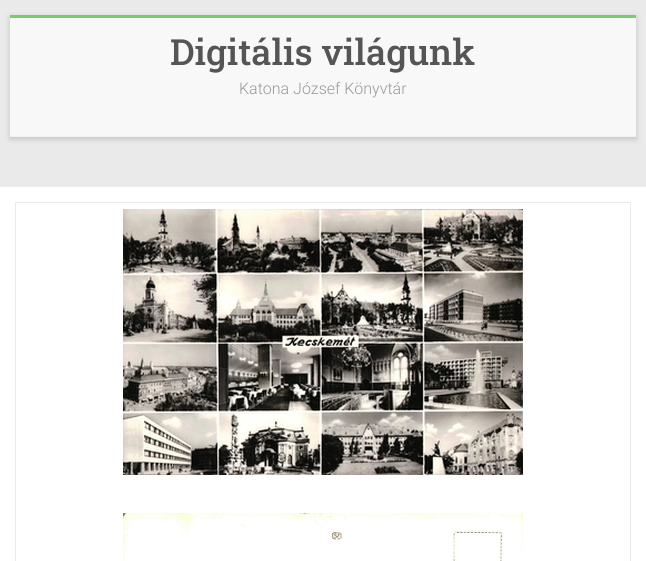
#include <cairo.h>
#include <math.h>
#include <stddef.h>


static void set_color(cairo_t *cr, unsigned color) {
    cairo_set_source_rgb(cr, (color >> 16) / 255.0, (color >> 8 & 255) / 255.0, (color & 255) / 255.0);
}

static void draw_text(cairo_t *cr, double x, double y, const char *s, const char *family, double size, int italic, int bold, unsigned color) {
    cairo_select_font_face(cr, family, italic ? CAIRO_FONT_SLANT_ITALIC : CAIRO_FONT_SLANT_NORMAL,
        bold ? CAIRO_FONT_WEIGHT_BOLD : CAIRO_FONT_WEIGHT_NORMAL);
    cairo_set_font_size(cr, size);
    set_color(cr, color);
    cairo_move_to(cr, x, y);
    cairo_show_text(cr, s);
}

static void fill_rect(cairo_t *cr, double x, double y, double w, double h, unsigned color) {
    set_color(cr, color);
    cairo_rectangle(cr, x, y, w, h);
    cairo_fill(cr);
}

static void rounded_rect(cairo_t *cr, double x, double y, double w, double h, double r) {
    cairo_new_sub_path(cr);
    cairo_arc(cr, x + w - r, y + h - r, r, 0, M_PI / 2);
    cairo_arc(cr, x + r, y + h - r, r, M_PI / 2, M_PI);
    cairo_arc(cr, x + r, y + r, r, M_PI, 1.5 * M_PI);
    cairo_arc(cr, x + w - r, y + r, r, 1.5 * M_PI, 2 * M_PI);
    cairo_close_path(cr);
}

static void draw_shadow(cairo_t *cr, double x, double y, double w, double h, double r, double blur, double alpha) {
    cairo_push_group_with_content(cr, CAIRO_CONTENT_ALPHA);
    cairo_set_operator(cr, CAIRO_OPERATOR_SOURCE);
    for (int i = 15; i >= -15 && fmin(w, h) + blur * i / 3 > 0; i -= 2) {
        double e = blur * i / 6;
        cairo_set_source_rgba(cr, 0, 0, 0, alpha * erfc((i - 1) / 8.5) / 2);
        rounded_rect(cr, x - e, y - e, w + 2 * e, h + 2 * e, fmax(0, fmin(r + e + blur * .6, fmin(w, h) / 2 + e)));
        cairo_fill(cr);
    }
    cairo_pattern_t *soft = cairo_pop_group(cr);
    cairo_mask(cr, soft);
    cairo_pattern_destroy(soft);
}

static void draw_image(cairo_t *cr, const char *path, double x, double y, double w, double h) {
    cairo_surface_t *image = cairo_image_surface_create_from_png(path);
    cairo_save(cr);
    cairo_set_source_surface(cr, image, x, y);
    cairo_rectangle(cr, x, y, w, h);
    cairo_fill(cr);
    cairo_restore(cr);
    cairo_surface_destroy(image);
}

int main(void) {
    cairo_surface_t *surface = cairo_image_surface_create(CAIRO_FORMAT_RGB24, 646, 561);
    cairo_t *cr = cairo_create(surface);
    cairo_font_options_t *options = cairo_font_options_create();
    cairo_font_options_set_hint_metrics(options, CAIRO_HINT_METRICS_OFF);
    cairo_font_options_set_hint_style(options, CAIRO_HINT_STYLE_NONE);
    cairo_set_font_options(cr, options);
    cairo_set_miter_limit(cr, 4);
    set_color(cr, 0xEAEAEA);
    cairo_paint(cr);
    set_color(cr, 0x646464);
    draw_shadow(cr, 10, 17, 626, 122, 0, 3, 0.3);
    fill_rect(cr, 10, 15, 626, 3, 0x77CC6D);
    fill_rect(cr, 10, 18, 626, 118, 0xF8F8F8);
    fill_rect(cr, 10, 136, 626, 1, 0xF2F2F2);
    draw_text(cr, 170, 65, "Digitális világunk", "Roboto Slab Medium", 36, 0, 0, 0x555555);
    draw_text(cr, 239, 94, "Katona József Könyvtár", "Roboto Light", 16, 0, 0, 0x999999);
    fill_rect(cr, 0, 187, 646, 374, 0xFFFFFF);
    fill_rect(cr, 15, 202, 616, 1, 0xEAEAEA);
    fill_rect(cr, 630, 202, 1, 359, 0xEAEAEA);
    fill_rect(cr, 15, 202, 1, 359, 0xEAEAEA);
    draw_image(cr, "assets/img1.png", 123, 209, 400, 266);
    draw_image(cr, "assets/img2.png", 123, 513, 400, 48);
    cairo_surface_write_to_png(surface, "output.png");
    cairo_font_options_destroy(options);
    cairo_destroy(cr);
    cairo_surface_destroy(surface);
    return 0;
}
